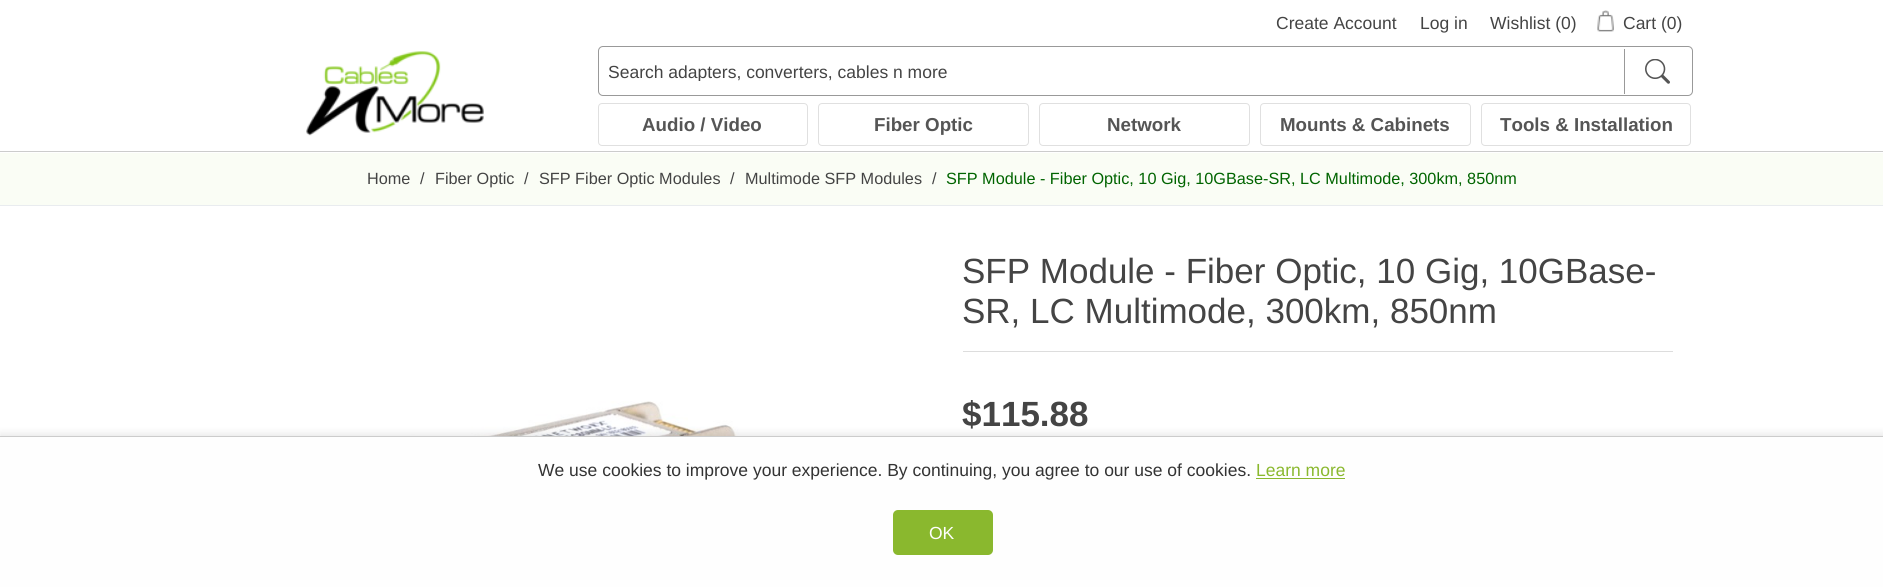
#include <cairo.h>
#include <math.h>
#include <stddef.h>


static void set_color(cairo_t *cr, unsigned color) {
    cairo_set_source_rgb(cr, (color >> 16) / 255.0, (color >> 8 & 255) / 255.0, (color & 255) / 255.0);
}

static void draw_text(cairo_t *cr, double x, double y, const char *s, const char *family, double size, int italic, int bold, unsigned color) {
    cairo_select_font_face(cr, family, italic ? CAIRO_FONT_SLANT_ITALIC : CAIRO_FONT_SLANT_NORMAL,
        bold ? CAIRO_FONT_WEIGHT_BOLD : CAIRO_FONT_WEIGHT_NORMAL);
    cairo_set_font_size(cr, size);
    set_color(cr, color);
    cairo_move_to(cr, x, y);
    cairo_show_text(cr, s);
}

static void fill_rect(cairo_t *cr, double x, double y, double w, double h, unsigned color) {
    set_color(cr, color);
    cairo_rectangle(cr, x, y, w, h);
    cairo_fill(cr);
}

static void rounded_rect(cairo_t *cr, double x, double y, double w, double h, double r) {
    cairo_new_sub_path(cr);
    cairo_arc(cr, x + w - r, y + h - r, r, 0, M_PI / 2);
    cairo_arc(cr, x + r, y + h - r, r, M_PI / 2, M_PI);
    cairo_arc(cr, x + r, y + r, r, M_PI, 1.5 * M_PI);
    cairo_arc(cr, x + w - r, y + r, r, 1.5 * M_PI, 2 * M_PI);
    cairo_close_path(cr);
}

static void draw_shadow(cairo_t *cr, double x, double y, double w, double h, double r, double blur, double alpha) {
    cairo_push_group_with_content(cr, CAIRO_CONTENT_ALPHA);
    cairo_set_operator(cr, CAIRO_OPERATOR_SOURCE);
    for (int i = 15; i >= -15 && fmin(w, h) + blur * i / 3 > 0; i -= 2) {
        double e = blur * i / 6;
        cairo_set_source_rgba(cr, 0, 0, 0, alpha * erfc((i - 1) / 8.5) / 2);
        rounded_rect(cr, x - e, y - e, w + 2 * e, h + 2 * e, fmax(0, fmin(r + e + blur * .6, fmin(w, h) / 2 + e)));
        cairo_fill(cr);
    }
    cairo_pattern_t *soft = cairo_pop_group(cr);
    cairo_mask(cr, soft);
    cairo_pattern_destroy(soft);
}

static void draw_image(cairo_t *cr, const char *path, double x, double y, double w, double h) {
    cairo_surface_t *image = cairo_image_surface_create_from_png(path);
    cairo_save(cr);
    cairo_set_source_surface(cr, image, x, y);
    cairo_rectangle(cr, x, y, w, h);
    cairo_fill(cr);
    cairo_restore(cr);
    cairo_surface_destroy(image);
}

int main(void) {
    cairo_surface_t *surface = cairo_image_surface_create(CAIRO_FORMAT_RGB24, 1883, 587);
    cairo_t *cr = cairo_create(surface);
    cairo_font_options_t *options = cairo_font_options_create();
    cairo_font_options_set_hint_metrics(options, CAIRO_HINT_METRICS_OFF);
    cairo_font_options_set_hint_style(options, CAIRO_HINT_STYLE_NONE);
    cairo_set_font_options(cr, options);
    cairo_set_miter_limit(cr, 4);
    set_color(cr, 0xFFFFFF);
    cairo_paint(cr);
    draw_text(cr, 1276, 29, "Create Account", "Liberation Sans", 17.5, 0, 0, 0x444444);
    draw_text(cr, 1420, 29, "Log in", "Liberation Sans", 17.5, 0, 0, 0x444444);
    draw_text(cr, 1490, 29, "Wishlist (0)", "Liberation Sans", 17.5, 0, 0, 0x444444);
    draw_image(cr, "assets/img1.png", 1597, 10, 17, 22);
    draw_text(cr, 1623, 29, "Cart (0)", "Liberation Sans", 17.5, 0, 0, 0x444444);
    draw_image(cr, "assets/img2.png", 306, 51, 178, 85);
    rounded_rect(cr, 598.5, 46.5, 1094, 49, 4.5);
    set_color(cr, 0x999999);
    cairo_set_line_width(cr, 1);
    cairo_stroke(cr);
    cairo_save(cr);
    cairo_rectangle(cr, 609, 61, 1001, 20);
    cairo_clip(cr);
    draw_text(cr, 608, 78, "Search adapters, converters, cables n more", "Liberation Sans", 17.5, 0, 0, 0x444444);
    cairo_restore(cr);
    fill_rect(cr, 1624, 49, 1, 45, 0x999999);
    draw_image(cr, "assets/img3.png", 1645, 59, 25, 25);
    fill_rect(cr, 0, 151, 1883, 1, 0xCCCCCC);
    rounded_rect(cr, 598.5, 103.5, 209, 42, 3.5);
    set_color(cr, 0xE0E0E0);
    cairo_stroke(cr);
    draw_text(cr, 642, 131, "Audio / Video", "Liberation Sans", 18.75, 0, 1, 0x555555);
    rounded_rect(cr, 818.5, 103.5, 210, 42, 3.5);
    set_color(cr, 0xE0E0E0);
    cairo_stroke(cr);
    draw_text(cr, 874, 131, "Fiber Optic", "Liberation Sans", 18.75, 0, 1, 0x555555);
    rounded_rect(cr, 1039.5, 103.5, 210, 42, 3.5);
    set_color(cr, 0xE0E0E0);
    cairo_stroke(cr);
    draw_text(cr, 1107, 131, "Network", "Liberation Sans", 18.75, 0, 1, 0x555555);
    rounded_rect(cr, 1260.5, 103.5, 210, 42, 3.5);
    set_color(cr, 0xE0E0E0);
    cairo_stroke(cr);
    draw_text(cr, 1280, 131, "Mounts & Cabinets", "Liberation Sans", 18.75, 0, 1, 0x555555);
    rounded_rect(cr, 1481.5, 103.5, 209, 42, 3.5);
    set_color(cr, 0xE0E0E0);
    cairo_stroke(cr);
    draw_text(cr, 1500, 131, "Tools & Installation", "Liberation Sans", 18.75, 0, 1, 0x555555);
    fill_rect(cr, 0, 153, 1883, 52, 0xFAFDF5);
    fill_rect(cr, 0, 205, 1883, 1, 0xE9ECEF);
    draw_text(cr, 367, 184, "Home", "Liberation Sans", 16.25, 0, 0, 0x444444);
    draw_text(cr, 420, 184, "/", "Liberation Sans", 16.25, 0, 0, 0x444444);
    draw_text(cr, 435, 184, "Fiber Optic", "Liberation Sans", 16.25, 0, 0, 0x444444);
    draw_text(cr, 524, 184, "/", "Liberation Sans", 16.25, 0, 0, 0x444444);
    draw_text(cr, 539, 184, "SFP Fiber Optic Modules", "Liberation Sans", 16.25, 0, 0, 0x444444);
    draw_text(cr, 730, 184, "/", "Liberation Sans", 16.25, 0, 0, 0x444444);
    draw_text(cr, 745, 184, "Multimode SFP Modules", "Liberation Sans", 16.25, 0, 0, 0x444444);
    draw_text(cr, 932, 184, "/", "Liberation Sans", 16.25, 0, 0, 0x444444);
    draw_text(cr, 946, 184, "SFP Module - Fiber Optic, 10 Gig, 10GBase-SR, LC Multimode, 300km, 850nm", "Liberation Sans", 16.25, 0, 0, 0x006400);
    draw_image(cr, "assets/img4.png", 332, 401, 407, 35);
    fill_rect(cr, 963, 351, 710, 1, 0xDDDDDD);
    draw_text(cr, 962, 283, "SFP Module - Fiber Optic, 10 Gig, 10GBase-", "Liberation Sans", 35, 0, 0, 0x444444);
    draw_text(cr, 962, 323, "SR, LC Multimode, 300km, 850nm", "Liberation Sans", 35, 0, 0, 0x444444);
    draw_text(cr, 962, 426, "$115.88", "Liberation Sans", 35, 0, 1, 0x444444);
    set_color(cr, 0x000000);
    draw_shadow(cr, 0, 434, 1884, 151, 0, 4, 0.1);
    fill_rect(cr, 0, 437, 1883, 150, 0xFEFEFE);
    fill_rect(cr, 0, 436, 1883, 1, 0xCCCCCC);
    draw_text(cr, 538, 476, "We use cookies to improve your experience. By continuing, you agree to our use of cookies.", "Liberation Sans", 17.5, 0, 0, 0x333333);
    draw_text(cr, 1256, 476, "Learn more", "Liberation Sans", 17.5, 0, 0, 0x8AB82E);
    fill_rect(cr, 1256, 478, 89, 1, 0x8AB82E);
    rounded_rect(cr, 893, 510, 100, 45, 5);
    cairo_fill(cr);
    draw_text(cr, 929, 539, "OK", "Liberation Sans", 17.5, 0, 0, 0xFFFFFF);
    cairo_surface_write_to_png(surface, "output.png");
    cairo_font_options_destroy(options);
    cairo_destroy(cr);
    cairo_surface_destroy(surface);
    return 0;
}
